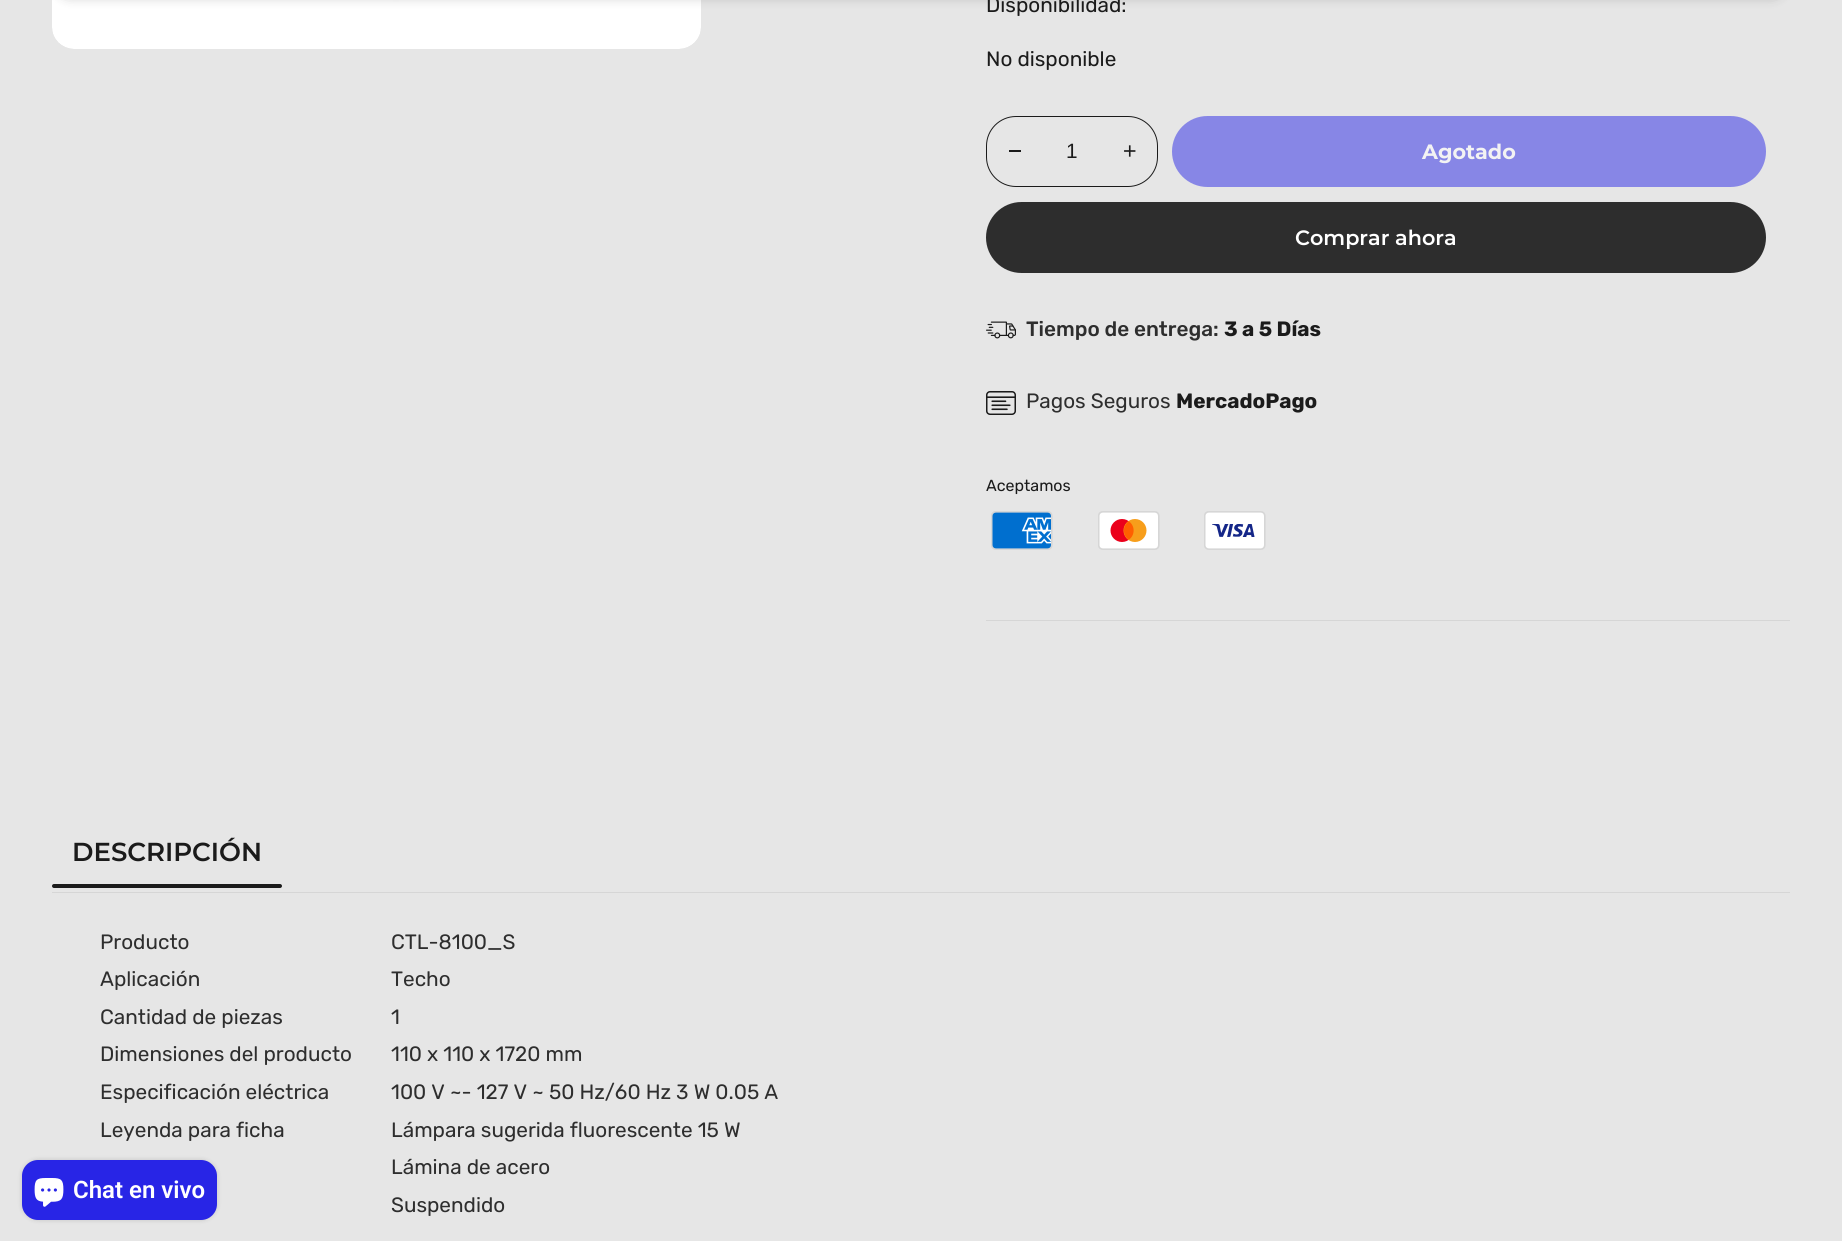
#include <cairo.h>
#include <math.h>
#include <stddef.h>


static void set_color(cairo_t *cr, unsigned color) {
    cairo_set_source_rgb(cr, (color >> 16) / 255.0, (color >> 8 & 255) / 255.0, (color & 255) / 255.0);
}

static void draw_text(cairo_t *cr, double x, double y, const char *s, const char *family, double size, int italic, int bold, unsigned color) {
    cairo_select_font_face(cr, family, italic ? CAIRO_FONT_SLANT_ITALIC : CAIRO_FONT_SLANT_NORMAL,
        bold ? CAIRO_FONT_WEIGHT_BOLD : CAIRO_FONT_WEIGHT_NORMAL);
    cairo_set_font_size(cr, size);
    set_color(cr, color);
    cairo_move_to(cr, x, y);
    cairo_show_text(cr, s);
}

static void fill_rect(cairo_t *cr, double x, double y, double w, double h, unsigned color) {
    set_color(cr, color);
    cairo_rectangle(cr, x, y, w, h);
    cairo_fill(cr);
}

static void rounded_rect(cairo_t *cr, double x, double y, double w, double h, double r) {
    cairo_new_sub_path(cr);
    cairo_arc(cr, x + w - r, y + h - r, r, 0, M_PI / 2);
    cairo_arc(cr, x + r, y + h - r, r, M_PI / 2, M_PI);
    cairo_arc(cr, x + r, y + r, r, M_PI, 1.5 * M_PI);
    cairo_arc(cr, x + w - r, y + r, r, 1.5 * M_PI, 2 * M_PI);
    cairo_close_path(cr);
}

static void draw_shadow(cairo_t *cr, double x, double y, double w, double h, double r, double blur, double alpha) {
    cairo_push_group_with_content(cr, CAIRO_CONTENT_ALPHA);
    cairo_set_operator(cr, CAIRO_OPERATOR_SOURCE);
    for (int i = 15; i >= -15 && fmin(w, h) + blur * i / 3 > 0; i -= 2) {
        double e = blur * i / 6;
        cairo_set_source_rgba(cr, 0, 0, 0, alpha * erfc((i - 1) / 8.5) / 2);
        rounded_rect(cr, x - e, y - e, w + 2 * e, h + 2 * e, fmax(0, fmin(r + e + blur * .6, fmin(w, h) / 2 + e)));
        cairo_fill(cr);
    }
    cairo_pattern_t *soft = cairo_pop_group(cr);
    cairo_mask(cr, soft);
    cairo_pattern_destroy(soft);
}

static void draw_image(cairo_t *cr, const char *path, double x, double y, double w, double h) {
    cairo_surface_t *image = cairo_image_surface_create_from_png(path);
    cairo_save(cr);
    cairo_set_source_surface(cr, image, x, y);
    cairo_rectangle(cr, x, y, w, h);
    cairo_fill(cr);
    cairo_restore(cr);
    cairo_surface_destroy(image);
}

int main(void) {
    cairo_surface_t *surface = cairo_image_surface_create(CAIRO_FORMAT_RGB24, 1842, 1241);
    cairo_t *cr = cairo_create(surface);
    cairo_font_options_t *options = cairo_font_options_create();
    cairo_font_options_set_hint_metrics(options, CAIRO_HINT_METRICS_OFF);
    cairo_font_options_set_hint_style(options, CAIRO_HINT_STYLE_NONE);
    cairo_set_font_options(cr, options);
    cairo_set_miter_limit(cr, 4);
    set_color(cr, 0xE6E6E6);
    cairo_paint(cr);
    draw_image(cr, "assets/img1.png", 52, 0, 649, 49);
    set_color(cr, 0x1A1A1A);
    draw_shadow(cr, 52, -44, 1738, 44, 29, 5, 0.15);
    draw_text(cr, 986, 12, "Disponibilidad:", "Rubik", 20.75, 0, 0, 0x1B1B1B);
    draw_text(cr, 986, 66, "No disponible", "Rubik", 20.75, 0, 0, 0x1B1B1B);
    fill_rect(cr, 1009, 150, 12, 2, 0x1B1B1B);
    draw_image(cr, "assets/img2.png", 1124, 145, 12, 12);
    rounded_rect(cr, 986.5, 116.5, 171, 70, 29.5);
    cairo_set_line_width(cr, 1);
    cairo_stroke(cr);
    draw_text(cr, 1066, 158, "1", "Liberation Sans", 20.75, 0, 0, 0x1B1B1B);
    set_color(cr, 0x8786E6);
    rounded_rect(cr, 1172, 116, 594, 71, 35.5);
    cairo_fill(cr);
    draw_text(cr, 1422, 159, "Agotado", "Montserrat", 20.75, 0, 1, 0xF3F3F3);
    set_color(cr, 0x2D2D2D);
    rounded_rect(cr, 986, 202, 780, 71, 35.5);
    cairo_fill(cr);
    draw_text(cr, 1295, 245, "Comprar ahora", "Montserrat SemiBold", 20.75, 0, 0, 0xFFFFFF);
    draw_image(cr, "assets/img3.png", 986, 321, 30, 18);
    draw_text(cr, 1026, 336, "Tiempo de entrega:", "Rubik Medium", 20.75, 0, 0, 0x2E2E2E);
    draw_text(cr, 1224, 336, "3 a 5 Días", "Rubik", 20.75, 0, 1, 0x1B1B1B);
    draw_image(cr, "assets/img4.png", 986, 391, 30, 24);
    draw_text(cr, 1026, 408, "Pagos Seguros", "Rubik", 20.75, 0, 0, 0x2E2E2E);
    draw_text(cr, 1176, 408, "MercadoPago", "Rubik", 20.75, 0, 1, 0x1B1B1B);
    fill_rect(cr, 986, 620, 804, 1, 0xD6D6D6);
    draw_text(cr, 986, 491, "Aceptamos", "Rubik", 16, 0, 0, 0x1B1B1B);
    draw_image(cr, "assets/img5.png", 991, 511, 62, 39);
    draw_image(cr, "assets/img6.png", 1098, 511, 62, 39);
    draw_image(cr, "assets/img7.png", 1204, 511, 62, 39);
    fill_rect(cr, 52, 892, 1738, 1, 0xD6D6D6);
    draw_text(cr, 72, 861, "DESCRIPCIÓN", "Montserrat SemiBold", 26, 0, 0, 0x1B1B1B);
    rounded_rect(cr, 52, 884, 230, 4, 2);
    cairo_fill(cr);
    draw_text(cr, 100, 949, "Producto", "Rubik", 20.75, 0, 0, 0x2E2E2E);
    draw_text(cr, 391, 949, "CTL-8100_S", "Rubik", 20.75, 0, 0, 0x2E2E2E);
    draw_text(cr, 100, 986, "Aplicación", "Rubik", 20.75, 0, 0, 0x2E2E2E);
    draw_text(cr, 391, 986, "Techo", "Rubik", 20.75, 0, 0, 0x2E2E2E);
    draw_text(cr, 100, 1024, "Cantidad de piezas", "Rubik", 20.75, 0, 0, 0x2E2E2E);
    draw_text(cr, 391, 1024, "1", "Rubik", 20.75, 0, 0, 0x2E2E2E);
    draw_text(cr, 100, 1061, "Dimensiones del producto", "Rubik", 20.75, 0, 0, 0x2E2E2E);
    draw_text(cr, 391, 1061, "110 x 110 x 1720 mm", "Rubik", 20.75, 0, 0, 0x2E2E2E);
    draw_text(cr, 100, 1099, "Especificación eléctrica", "Rubik", 20.75, 0, 0, 0x2E2E2E);
    draw_text(cr, 391, 1099, "100 V ~- 127 V ~ 50 Hz/60 Hz 3 W 0.05 A", "Rubik", 20.75, 0, 0, 0x2E2E2E);
    draw_text(cr, 100, 1137, "Leyenda para ficha", "Rubik", 20.75, 0, 0, 0x2E2E2E);
    draw_text(cr, 391, 1137, "Lámpara sugerida fluorescente 15 W", "Rubik", 20.75, 0, 0, 0x2E2E2E);
    draw_text(cr, 391, 1174, "Lámina de acero", "Rubik", 20.75, 0, 0, 0x2E2E2E);
    draw_text(cr, 391, 1212, "Suspendido", "Rubik", 20.75, 0, 0, 0x2E2E2E);
    set_color(cr, 0x000000);
    draw_shadow(cr, 22, 1160, 195, 60, 16, 2.5, 0.15);
    set_color(cr, 0x2825E6);
    rounded_rect(cr, 22, 1160, 195, 60, 16);
    cairo_fill(cr);
    draw_image(cr, "assets/img8.png", 34, 1178, 30, 29);
    draw_text(cr, 73, 1198, "Chat en vivo", "Roboto SemiBold", 24, 0, 0, 0xFFFFFF);
    cairo_surface_write_to_png(surface, "output.png");
    cairo_font_options_destroy(options);
    cairo_destroy(cr);
    cairo_surface_destroy(surface);
    return 0;
}
